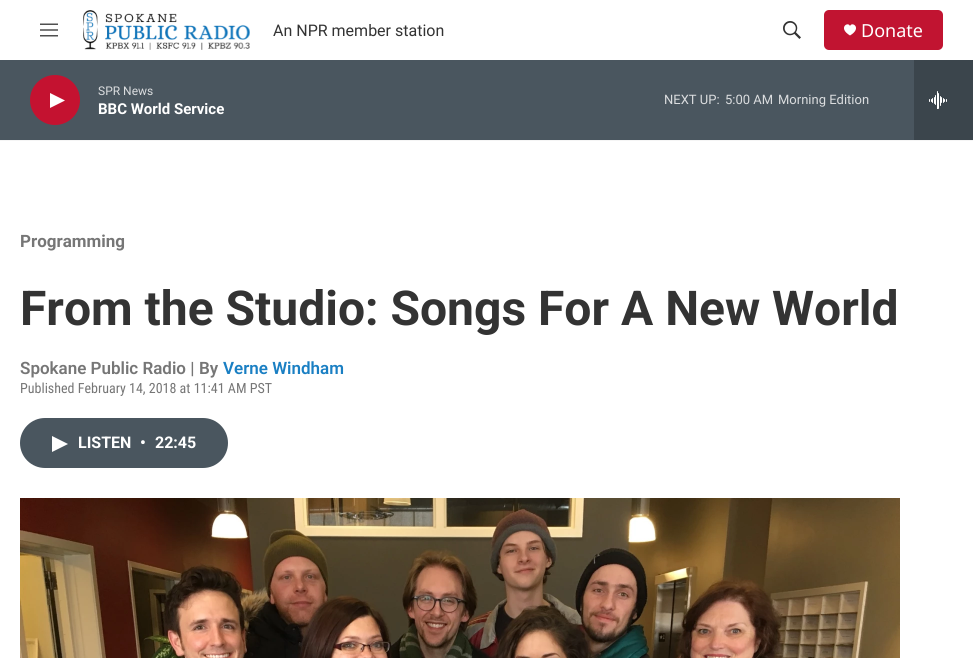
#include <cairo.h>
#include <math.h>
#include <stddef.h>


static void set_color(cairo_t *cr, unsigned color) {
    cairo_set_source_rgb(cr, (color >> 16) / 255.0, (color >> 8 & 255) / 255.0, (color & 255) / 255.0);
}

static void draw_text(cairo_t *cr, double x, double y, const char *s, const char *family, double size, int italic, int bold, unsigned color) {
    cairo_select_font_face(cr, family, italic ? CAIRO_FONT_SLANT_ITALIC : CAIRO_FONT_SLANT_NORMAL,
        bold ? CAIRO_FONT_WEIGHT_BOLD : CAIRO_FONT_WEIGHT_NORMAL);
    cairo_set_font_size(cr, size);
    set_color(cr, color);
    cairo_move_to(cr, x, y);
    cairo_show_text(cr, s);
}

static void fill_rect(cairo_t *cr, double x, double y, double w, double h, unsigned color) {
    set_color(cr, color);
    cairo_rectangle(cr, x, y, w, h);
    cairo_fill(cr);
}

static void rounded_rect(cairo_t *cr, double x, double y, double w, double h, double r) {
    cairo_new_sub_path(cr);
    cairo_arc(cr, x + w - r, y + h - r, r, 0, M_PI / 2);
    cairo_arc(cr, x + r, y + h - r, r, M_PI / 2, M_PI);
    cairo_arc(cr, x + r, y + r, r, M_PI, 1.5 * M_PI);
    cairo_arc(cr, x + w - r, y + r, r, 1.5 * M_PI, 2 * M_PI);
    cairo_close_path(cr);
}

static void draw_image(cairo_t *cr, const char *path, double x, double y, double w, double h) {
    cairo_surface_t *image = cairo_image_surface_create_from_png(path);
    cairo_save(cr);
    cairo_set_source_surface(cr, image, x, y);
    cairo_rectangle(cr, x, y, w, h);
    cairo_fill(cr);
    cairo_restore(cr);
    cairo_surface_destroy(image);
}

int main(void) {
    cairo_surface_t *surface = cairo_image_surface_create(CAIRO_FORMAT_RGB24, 973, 658);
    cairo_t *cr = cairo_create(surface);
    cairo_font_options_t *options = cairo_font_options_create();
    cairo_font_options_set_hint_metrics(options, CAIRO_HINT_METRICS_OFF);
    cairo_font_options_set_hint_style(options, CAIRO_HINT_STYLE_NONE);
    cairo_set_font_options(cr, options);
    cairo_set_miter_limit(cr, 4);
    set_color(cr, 0xFFFFFF);
    cairo_paint(cr);
    fill_rect(cr, 0, 140, 973, 1, 0xF5F5F5);
    draw_image(cr, "assets/img1.png", 40, 23, 18, 14);
    draw_image(cr, "assets/img2.png", 83, 10, 167, 40);
    draw_text(cr, 273, 36, "An NPR member station", "Roboto", 16, 0, 0, 0x333333);
    draw_image(cr, "assets/img3.png", 783, 21, 18, 18);
    set_color(cr, 0xC11431);
    rounded_rect(cr, 824, 10, 119, 40, 5);
    cairo_fill(cr);
    set_color(cr, 0xFFFFFF);
    cairo_new_path(cr);
    cairo_move_to(cr, 850, 26);
    cairo_curve_to(cr, 848, 21, 837.5, 28, 850, 35.5);
    cairo_curve_to(cr, 862.5, 28, 852, 21, 850, 26);
    cairo_close_path(cr);
    cairo_fill(cr);
    draw_text(cr, 861, 37, "Donate", "Noto Sans", 18, 0, 0, 0xFFFFFF);
    fill_rect(cr, 0, 60, 914, 80, 0x4A565F);
    set_color(cr, 0xC41230);
    cairo_new_path(cr);
    cairo_arc(cr, 55, 100, 25, 0, 2 * M_PI);
    cairo_fill(cr);
    set_color(cr, 0xFFFFFF);
    cairo_new_path(cr);
    cairo_move_to(cr, 50, 93);
    cairo_line_to(cr, 65, 100.5);
    cairo_line_to(cr, 50, 108);
    cairo_close_path(cr);
    cairo_fill(cr);
    draw_text(cr, 98, 95, "SPR News", "Roboto", 12, 0, 0, 0xDBDDDF);
    draw_text(cr, 98, 114, "BBC World Service", "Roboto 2", 15, 0, 1, 0xFFFFFF);
    draw_text(cr, 664, 104, "NEXT UP:", "Roboto", 13, 0, 0, 0xDBDDDF);
    draw_text(cr, 725, 104, "5:00 AM", "Roboto", 13, 0, 0, 0xDBDDDF);
    draw_text(cr, 778, 104, "Morning Edition", "Roboto", 13, 0, 0, 0xDBDDDF);
    fill_rect(cr, 914, 60, 59, 80, 0x3B454C);
    draw_image(cr, "assets/img4.png", 929, 91, 18, 18);
    draw_text(cr, 20, 247, "Programming", "Roboto", 17, 0, 1, 0x767676);
    draw_text(cr, 20, 325, "From the Studio: Songs For A New World", "Roboto", 48, 0, 1, 0x333333);
    draw_text(cr, 20, 374, "Spokane Public Radio |", "Roboto SemiBold", 17, 0, 0, 0x767676);
    draw_text(cr, 199, 374, "By", "Roboto SemiBold", 17, 0, 0, 0x767676);
    draw_text(cr, 223, 374, "Verne Windham", "Roboto SemiBold", 17, 0, 0, 0x1A7FC3);
    draw_text(cr, 20, 393, "Published February 14, 2018 at 11:41 AM PST", "Roboto Condensed", 14, 0, 0, 0x767676);
    set_color(cr, 0x4A565F);
    rounded_rect(cr, 20, 418, 208, 50, 25);
    cairo_fill(cr);
    set_color(cr, 0xFFFFFF);
    cairo_new_path(cr);
    cairo_move_to(cr, 52, 436);
    cairo_line_to(cr, 68, 444);
    cairo_line_to(cr, 52, 452);
    cairo_close_path(cr);
    cairo_fill(cr);
    draw_text(cr, 78, 448, "LISTEN", "Roboto 2", 16, 0, 1, 0xFFFFFF);
    draw_text(cr, 140, 448, "•", "Roboto 2", 16, 0, 1, 0xFFFFFF);
    draw_text(cr, 155, 448, "22:45", "Roboto 2", 16, 0, 1, 0xFFFFFF);
    draw_image(cr, "assets/img5.png", 20, 498, 880, 160);
    cairo_surface_write_to_png(surface, "output.png");
    cairo_font_options_destroy(options);
    cairo_destroy(cr);
    cairo_surface_destroy(surface);
    return 0;
}
